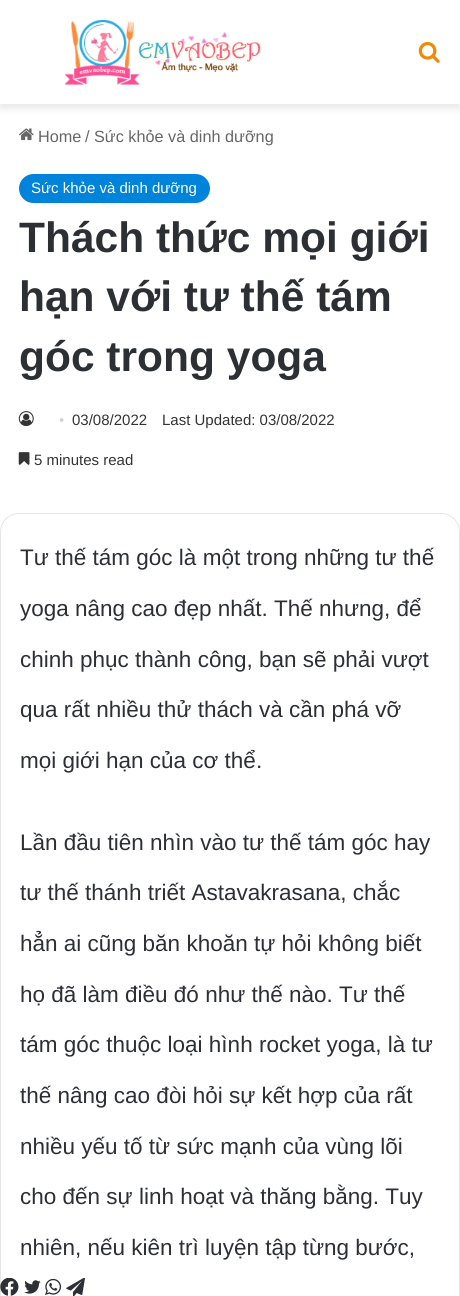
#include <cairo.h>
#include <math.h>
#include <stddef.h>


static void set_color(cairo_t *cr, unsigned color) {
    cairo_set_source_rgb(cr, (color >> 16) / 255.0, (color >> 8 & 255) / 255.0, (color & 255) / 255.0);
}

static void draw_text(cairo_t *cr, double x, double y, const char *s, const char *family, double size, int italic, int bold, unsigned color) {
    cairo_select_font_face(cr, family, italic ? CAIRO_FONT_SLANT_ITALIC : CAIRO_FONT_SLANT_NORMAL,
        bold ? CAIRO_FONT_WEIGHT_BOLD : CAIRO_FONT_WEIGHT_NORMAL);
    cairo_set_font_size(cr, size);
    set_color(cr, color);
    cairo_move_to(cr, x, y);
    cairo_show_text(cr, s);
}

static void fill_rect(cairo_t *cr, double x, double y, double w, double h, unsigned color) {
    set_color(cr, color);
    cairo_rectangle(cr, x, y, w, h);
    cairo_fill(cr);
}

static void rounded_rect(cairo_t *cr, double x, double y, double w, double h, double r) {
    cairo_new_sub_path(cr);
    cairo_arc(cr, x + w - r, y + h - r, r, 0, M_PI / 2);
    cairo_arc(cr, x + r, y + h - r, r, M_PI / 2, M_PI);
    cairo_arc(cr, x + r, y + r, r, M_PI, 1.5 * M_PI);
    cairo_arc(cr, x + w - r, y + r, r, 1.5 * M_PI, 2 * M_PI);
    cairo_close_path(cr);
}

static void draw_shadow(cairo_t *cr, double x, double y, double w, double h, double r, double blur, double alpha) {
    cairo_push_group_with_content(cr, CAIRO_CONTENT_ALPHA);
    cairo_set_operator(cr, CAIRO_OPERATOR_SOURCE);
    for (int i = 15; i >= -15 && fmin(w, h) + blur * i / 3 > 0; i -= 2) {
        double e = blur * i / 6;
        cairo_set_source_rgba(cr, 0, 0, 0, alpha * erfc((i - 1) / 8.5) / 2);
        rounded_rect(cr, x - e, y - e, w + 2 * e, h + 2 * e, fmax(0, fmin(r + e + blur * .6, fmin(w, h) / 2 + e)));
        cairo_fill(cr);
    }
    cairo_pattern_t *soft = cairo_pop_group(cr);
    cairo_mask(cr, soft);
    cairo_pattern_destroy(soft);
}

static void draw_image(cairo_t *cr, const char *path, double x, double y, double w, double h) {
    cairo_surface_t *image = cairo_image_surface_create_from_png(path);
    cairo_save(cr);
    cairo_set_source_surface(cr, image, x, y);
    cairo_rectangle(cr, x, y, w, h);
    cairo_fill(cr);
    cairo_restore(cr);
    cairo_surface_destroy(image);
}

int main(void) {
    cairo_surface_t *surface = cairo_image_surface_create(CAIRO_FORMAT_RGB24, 460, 1296);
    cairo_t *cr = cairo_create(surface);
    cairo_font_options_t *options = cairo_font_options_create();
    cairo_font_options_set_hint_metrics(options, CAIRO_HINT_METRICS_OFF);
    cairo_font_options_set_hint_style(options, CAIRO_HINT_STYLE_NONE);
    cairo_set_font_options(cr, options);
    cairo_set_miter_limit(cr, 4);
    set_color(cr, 0xFFFFFF);
    cairo_paint(cr);
    set_color(cr, 0x000000);
    draw_shadow(cr, 0, 4, 460, 104, 0, 4.5, 0.1);
    fill_rect(cr, 0, 0, 460, 104, 0xFFFFFF);
    draw_image(cr, "assets/img1.png", 64, 19, 199, 66);
    draw_image(cr, "assets/img2.png", 418, 42, 22, 21);
    draw_image(cr, "assets/img3.png", 19, 128, 15, 13);
    draw_text(cr, 38, 142, "Home", "Liberation Sans", 16.25, 0, 0, 0x666666);
    draw_text(cr, 85, 142, "/", "Liberation Sans", 16.25, 0, 0, 0x666666);
    draw_text(cr, 94, 142, "Sức khỏe và dinh dưỡng", "Liberation Sans", 16.25, 0, 0, 0x666666);
    set_color(cr, 0x0083DB);
    rounded_rect(cr, 19, 174, 191, 29, 14.5);
    cairo_fill(cr);
    draw_text(cr, 31, 193, "Sức khỏe và dinh dưỡng", "Liberation Sans", 15, 0, 0, 0xFFFFFF);
    draw_text(cr, 19, 252, "Thách thức mọi giới", "Liberation Sans", 42.5, 0, 1, 0x2C2F34);
    draw_text(cr, 19, 311, "hạn với tư thế tám", "Liberation Sans", 42.5, 0, 1, 0x2C2F34);
    draw_text(cr, 19, 371, "góc trong yoga", "Liberation Sans", 42.5, 0, 1, 0x2C2F34);
    draw_image(cr, "assets/img4.png", 18, 411, 16, 16);
    draw_text(cr, 59, 425, "•", "Liberation Serif", 15, 0, 0, 0xCCCCCC);
    draw_text(cr, 72, 425, "03/08/2022", "Liberation Sans", 15, 0, 0, 0x333333);
    draw_text(cr, 162, 425, "Last Updated: 03/08/2022", "Liberation Sans", 15, 0, 0, 0x333333);
    draw_image(cr, "assets/img5.png", 18, 452, 12, 13);
    draw_text(cr, 34, 465, "5 minutes read", "Liberation Sans", 15, 0, 0, 0x333333);
    rounded_rect(cr, 0.5, 513.5, 459, 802, 18.5);
    set_color(cr, 0xE6E6E6);
    cairo_set_line_width(cr, 1);
    cairo_stroke(cr);
    draw_text(cr, 20, 565, "Tư thế tám góc là một trong những tư thế", "Liberation Sans", 22.5, 0, 0, 0x2C2F34);
    draw_text(cr, 20, 616, "yoga nâng cao đẹp nhất. Thế nhưng, để", "Liberation Sans", 22.5, 0, 0, 0x2C2F34);
    draw_text(cr, 20, 667, "chinh phục thành công, bạn sẽ phải vượt", "Liberation Sans", 22.5, 0, 0, 0x2C2F34);
    draw_text(cr, 20, 717, "qua rất nhiều thử thách và cần phá vỡ", "Liberation Sans", 22.5, 0, 0, 0x2C2F34);
    draw_text(cr, 20, 768, "mọi giới hạn của cơ thể.", "Liberation Sans", 22.5, 0, 0, 0x2C2F34);
    draw_text(cr, 20, 850, "Lần đầu tiên nhìn vào tư thế tám góc hay", "Liberation Sans", 22.5, 0, 0, 0x2C2F34);
    draw_text(cr, 20, 900, "tư thế thánh triết Astavakrasana, chắc", "Liberation Sans", 22.5, 0, 0, 0x2C2F34);
    draw_text(cr, 20, 951, "hẳn ai cũng băn khoăn tự hỏi không biết", "Liberation Sans", 22.5, 0, 0, 0x2C2F34);
    draw_text(cr, 20, 1002, "họ đã làm điều đó như thế nào. Tư thế", "Liberation Sans", 22.5, 0, 0, 0x2C2F34);
    draw_text(cr, 20, 1052, "tám góc thuộc loại hình rocket yoga, là tư", "Liberation Sans", 22.5, 0, 0, 0x2C2F34);
    draw_text(cr, 20, 1103, "thế nâng cao đòi hỏi sự kết hợp của rất", "Liberation Sans", 22.5, 0, 0, 0x2C2F34);
    draw_text(cr, 20, 1154, "nhiều yếu tố từ sức mạnh của vùng lõi", "Liberation Sans", 22.5, 0, 0, 0x2C2F34);
    draw_text(cr, 20, 1204, "cho đến sự linh hoạt và thăng bằng. Tuy", "Liberation Sans", 22.5, 0, 0, 0x2C2F34);
    draw_text(cr, 20, 1255, "nhiên, nếu kiên trì luyện tập từng bước,", "Liberation Sans", 22.5, 0, 0, 0x2C2F34);
    draw_image(cr, "assets/img6.png", 0, 1278, 19, 18);
    draw_image(cr, "assets/img7.png", 24, 1280, 17, 14);
    draw_image(cr, "assets/img8.png", 45, 1278, 17, 17);
    draw_image(cr, "assets/img9.png", 66, 1278, 19, 18);
    cairo_surface_write_to_png(surface, "output.png");
    cairo_font_options_destroy(options);
    cairo_destroy(cr);
    cairo_surface_destroy(surface);
    return 0;
}
